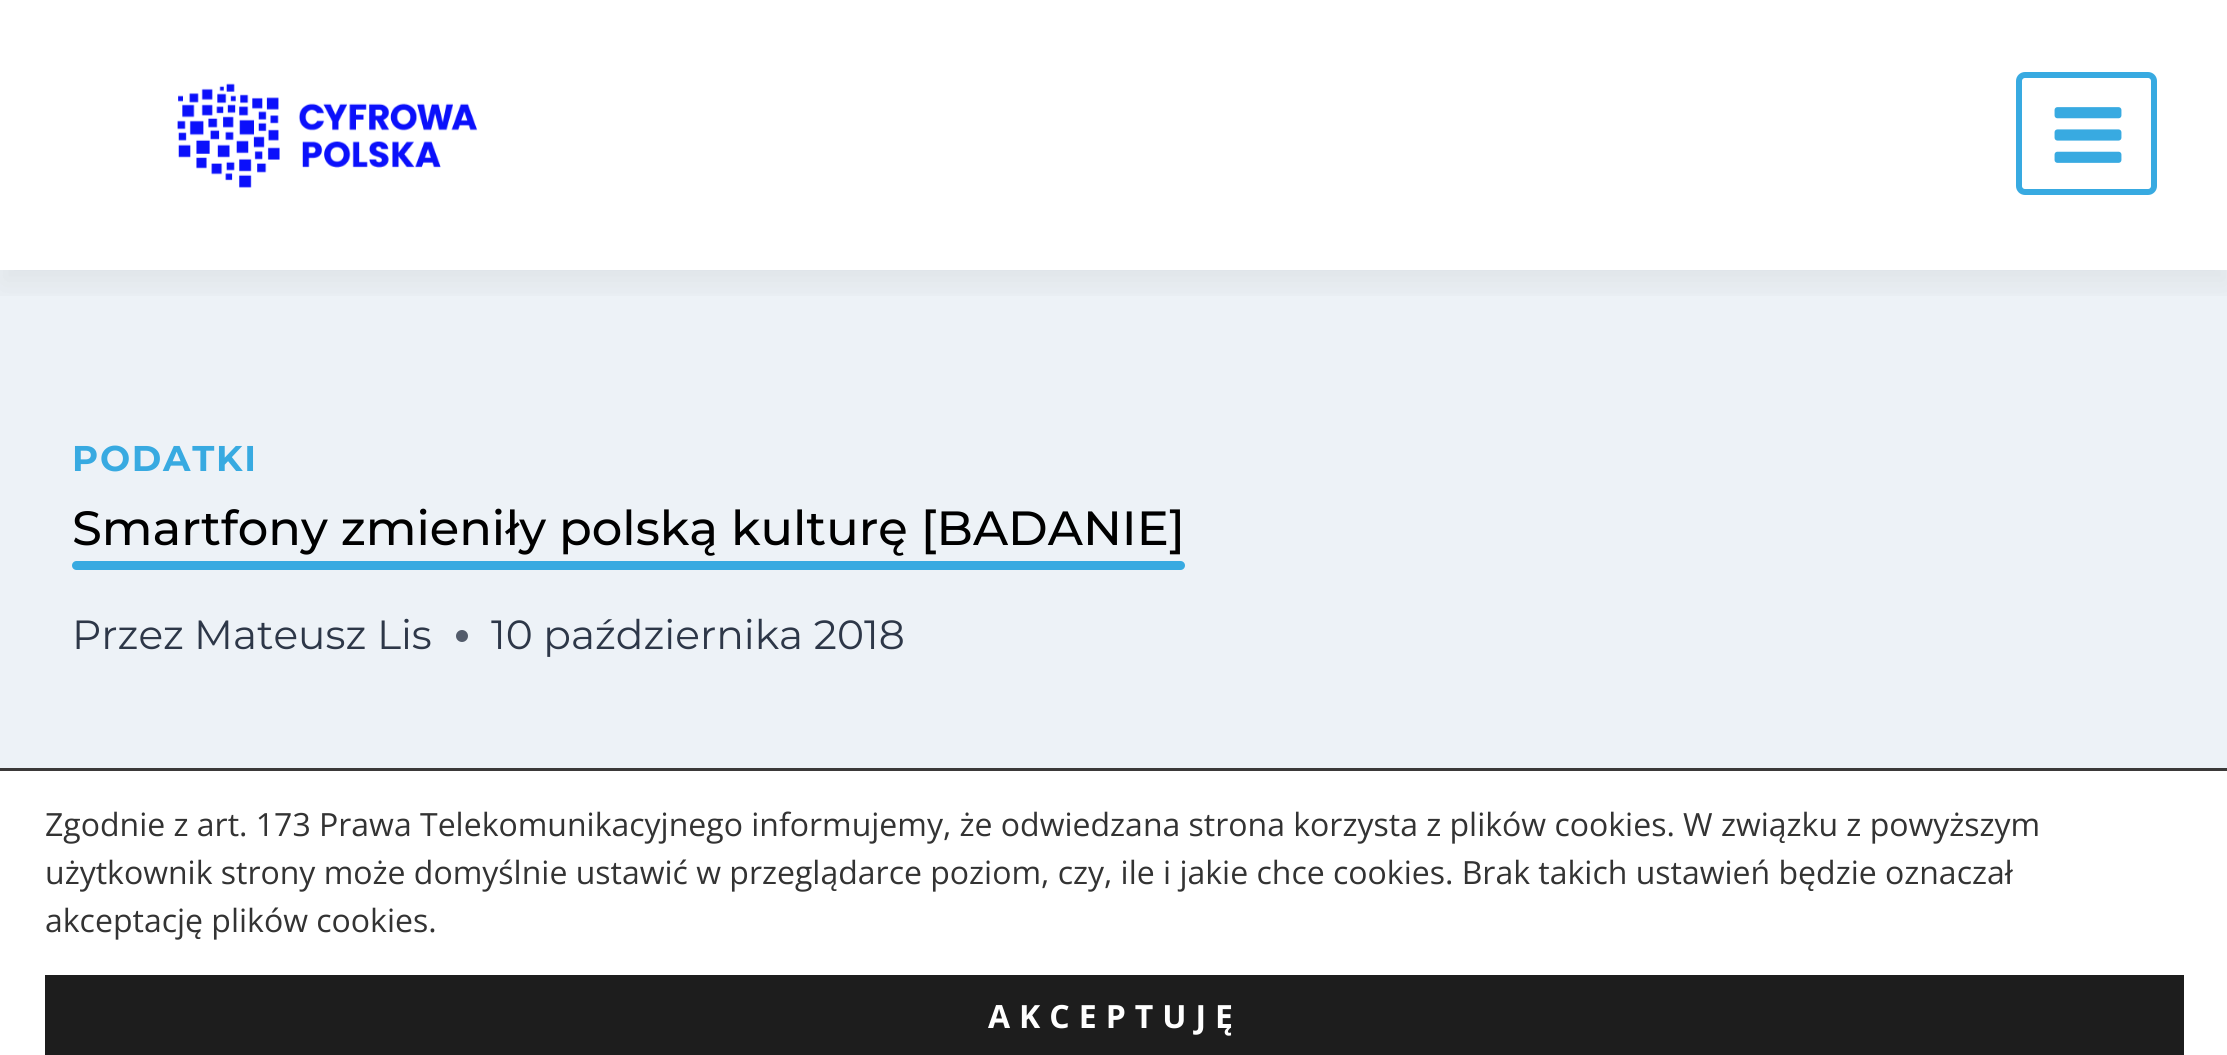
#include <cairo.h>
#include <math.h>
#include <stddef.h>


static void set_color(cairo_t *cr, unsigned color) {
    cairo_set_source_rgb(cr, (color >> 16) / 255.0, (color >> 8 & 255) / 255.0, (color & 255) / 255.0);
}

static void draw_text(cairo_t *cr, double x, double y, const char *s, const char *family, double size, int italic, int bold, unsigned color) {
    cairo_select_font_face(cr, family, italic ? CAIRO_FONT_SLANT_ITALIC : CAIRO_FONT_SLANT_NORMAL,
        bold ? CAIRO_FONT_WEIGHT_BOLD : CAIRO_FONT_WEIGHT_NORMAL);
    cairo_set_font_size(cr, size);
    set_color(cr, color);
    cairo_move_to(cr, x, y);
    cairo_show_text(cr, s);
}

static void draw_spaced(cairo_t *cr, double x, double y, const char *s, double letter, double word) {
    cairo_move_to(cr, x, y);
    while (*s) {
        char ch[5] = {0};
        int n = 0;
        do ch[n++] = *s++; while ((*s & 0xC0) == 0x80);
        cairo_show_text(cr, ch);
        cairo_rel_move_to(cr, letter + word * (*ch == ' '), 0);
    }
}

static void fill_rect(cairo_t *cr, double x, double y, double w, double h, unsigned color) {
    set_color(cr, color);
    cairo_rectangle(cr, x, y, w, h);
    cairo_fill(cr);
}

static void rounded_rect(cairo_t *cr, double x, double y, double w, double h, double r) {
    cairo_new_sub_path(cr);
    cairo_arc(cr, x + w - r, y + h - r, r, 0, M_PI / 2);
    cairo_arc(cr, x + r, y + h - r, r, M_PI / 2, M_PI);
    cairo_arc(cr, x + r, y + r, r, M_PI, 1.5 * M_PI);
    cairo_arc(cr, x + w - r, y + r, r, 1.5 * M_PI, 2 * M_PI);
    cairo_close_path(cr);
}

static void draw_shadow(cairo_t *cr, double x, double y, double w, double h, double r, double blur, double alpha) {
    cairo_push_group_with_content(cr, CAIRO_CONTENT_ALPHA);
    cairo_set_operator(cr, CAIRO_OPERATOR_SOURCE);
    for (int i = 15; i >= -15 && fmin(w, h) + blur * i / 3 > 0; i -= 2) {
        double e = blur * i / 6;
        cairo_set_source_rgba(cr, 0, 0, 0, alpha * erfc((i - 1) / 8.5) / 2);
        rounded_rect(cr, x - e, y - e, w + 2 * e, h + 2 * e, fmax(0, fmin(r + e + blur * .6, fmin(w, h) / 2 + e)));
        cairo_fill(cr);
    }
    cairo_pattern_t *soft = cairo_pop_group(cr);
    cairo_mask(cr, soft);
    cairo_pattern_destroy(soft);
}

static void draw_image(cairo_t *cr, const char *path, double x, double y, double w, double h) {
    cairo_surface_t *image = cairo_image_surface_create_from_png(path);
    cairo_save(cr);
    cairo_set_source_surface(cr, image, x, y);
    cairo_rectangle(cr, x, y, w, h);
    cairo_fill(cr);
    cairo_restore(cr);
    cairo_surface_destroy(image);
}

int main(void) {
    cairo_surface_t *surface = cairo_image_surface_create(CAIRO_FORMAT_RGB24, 2227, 1055);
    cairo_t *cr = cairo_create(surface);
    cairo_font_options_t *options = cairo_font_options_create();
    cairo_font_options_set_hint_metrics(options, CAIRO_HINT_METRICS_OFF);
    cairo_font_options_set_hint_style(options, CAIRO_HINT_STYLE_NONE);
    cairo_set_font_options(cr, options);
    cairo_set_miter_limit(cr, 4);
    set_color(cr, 0xEDF2F7);
    cairo_paint(cr);
    fill_rect(cr, 0, 0, 2227, 270, 0xFFFFFF);
    cairo_save(cr);
    cairo_rectangle(cr, 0, 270, 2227, 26);
    cairo_clip(cr);
    set_color(cr, 0x323232);
    draw_shadow(cr, 0, 15, 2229, 270, 0, 16.5, 0.08);
    cairo_restore(cr);
    draw_image(cr, "assets/img1.png", 177, 83, 301, 105);
    rounded_rect(cr, 2019, 75, 135, 117, 6);
    set_color(cr, 0x38AAE1);
    cairo_set_line_width(cr, 6);
    cairo_stroke(cr);
    draw_image(cr, "assets/img2.png", 2054, 107, 68, 56);
    cairo_select_font_face(cr, "Montserrat", CAIRO_FONT_SLANT_NORMAL, CAIRO_FONT_WEIGHT_BOLD);
    cairo_set_font_size(cr, 35.75);
    draw_spaced(cr, 72, 471, "PODATKI", 1.75, 0);
    draw_text(cr, 72, 545, "Smartfony zmieniły polską kulturę [BADANIE]", "Montserrat Medium", 48, 0, 0, 0x000000);
    set_color(cr, 0x38AAE1);
    rounded_rect(cr, 72, 561, 1113, 9, 4.5);
    cairo_fill(cr);
    draw_text(cr, 72, 649, "Przez", "Montserrat", 40.75, 0, 0, 0x2D3748);
    draw_text(cr, 194, 649, "Mateusz Lis", "Montserrat", 40.75, 0, 0, 0x2D3748);
    set_color(cr, 0x535C6B);
    cairo_new_path(cr);
    cairo_arc(cr, 462, 636, 6, 0, 2 * M_PI);
    cairo_fill(cr);
    draw_text(cr, 491, 649, "10 października 2018", "Montserrat", 40.75, 0, 0, 0x2D3748);
    fill_rect(cr, 0, 771, 2227, 284, 0xFFFFFF);
    fill_rect(cr, 0, 768, 2227, 3, 0x3B3939);
    draw_text(cr, 45, 836, "Zgodnie z art. 173 Prawa Telekomunikacyjnego informujemy, że odwiedzana strona korzysta z plików cookies. W związku z powyższym", "Open Sans", 32, 0, 0, 0x333333);
    draw_text(cr, 45, 884, "użytkownik strony może domyślnie ustawić w przeglądarce poziom, czy, ile i jakie chce cookies. Brak takich ustawień będzie oznaczał", "Open Sans", 32, 0, 0, 0x333333);
    draw_text(cr, 45, 932, "akceptację plików cookies.", "Open Sans", 32, 0, 0, 0x333333);
    fill_rect(cr, 45, 975, 2139, 80, 0x1D1D1D);
    cairo_select_font_face(cr, "Open Sans", CAIRO_FONT_SLANT_NORMAL, CAIRO_FONT_WEIGHT_BOLD);
    set_color(cr, 0xFFFFFF);
    draw_spaced(cr, 988, 1028, "AKCEPTUJĘ", 9, 0);
    cairo_surface_write_to_png(surface, "output.png");
    cairo_font_options_destroy(options);
    cairo_destroy(cr);
    cairo_surface_destroy(surface);
    return 0;
}
